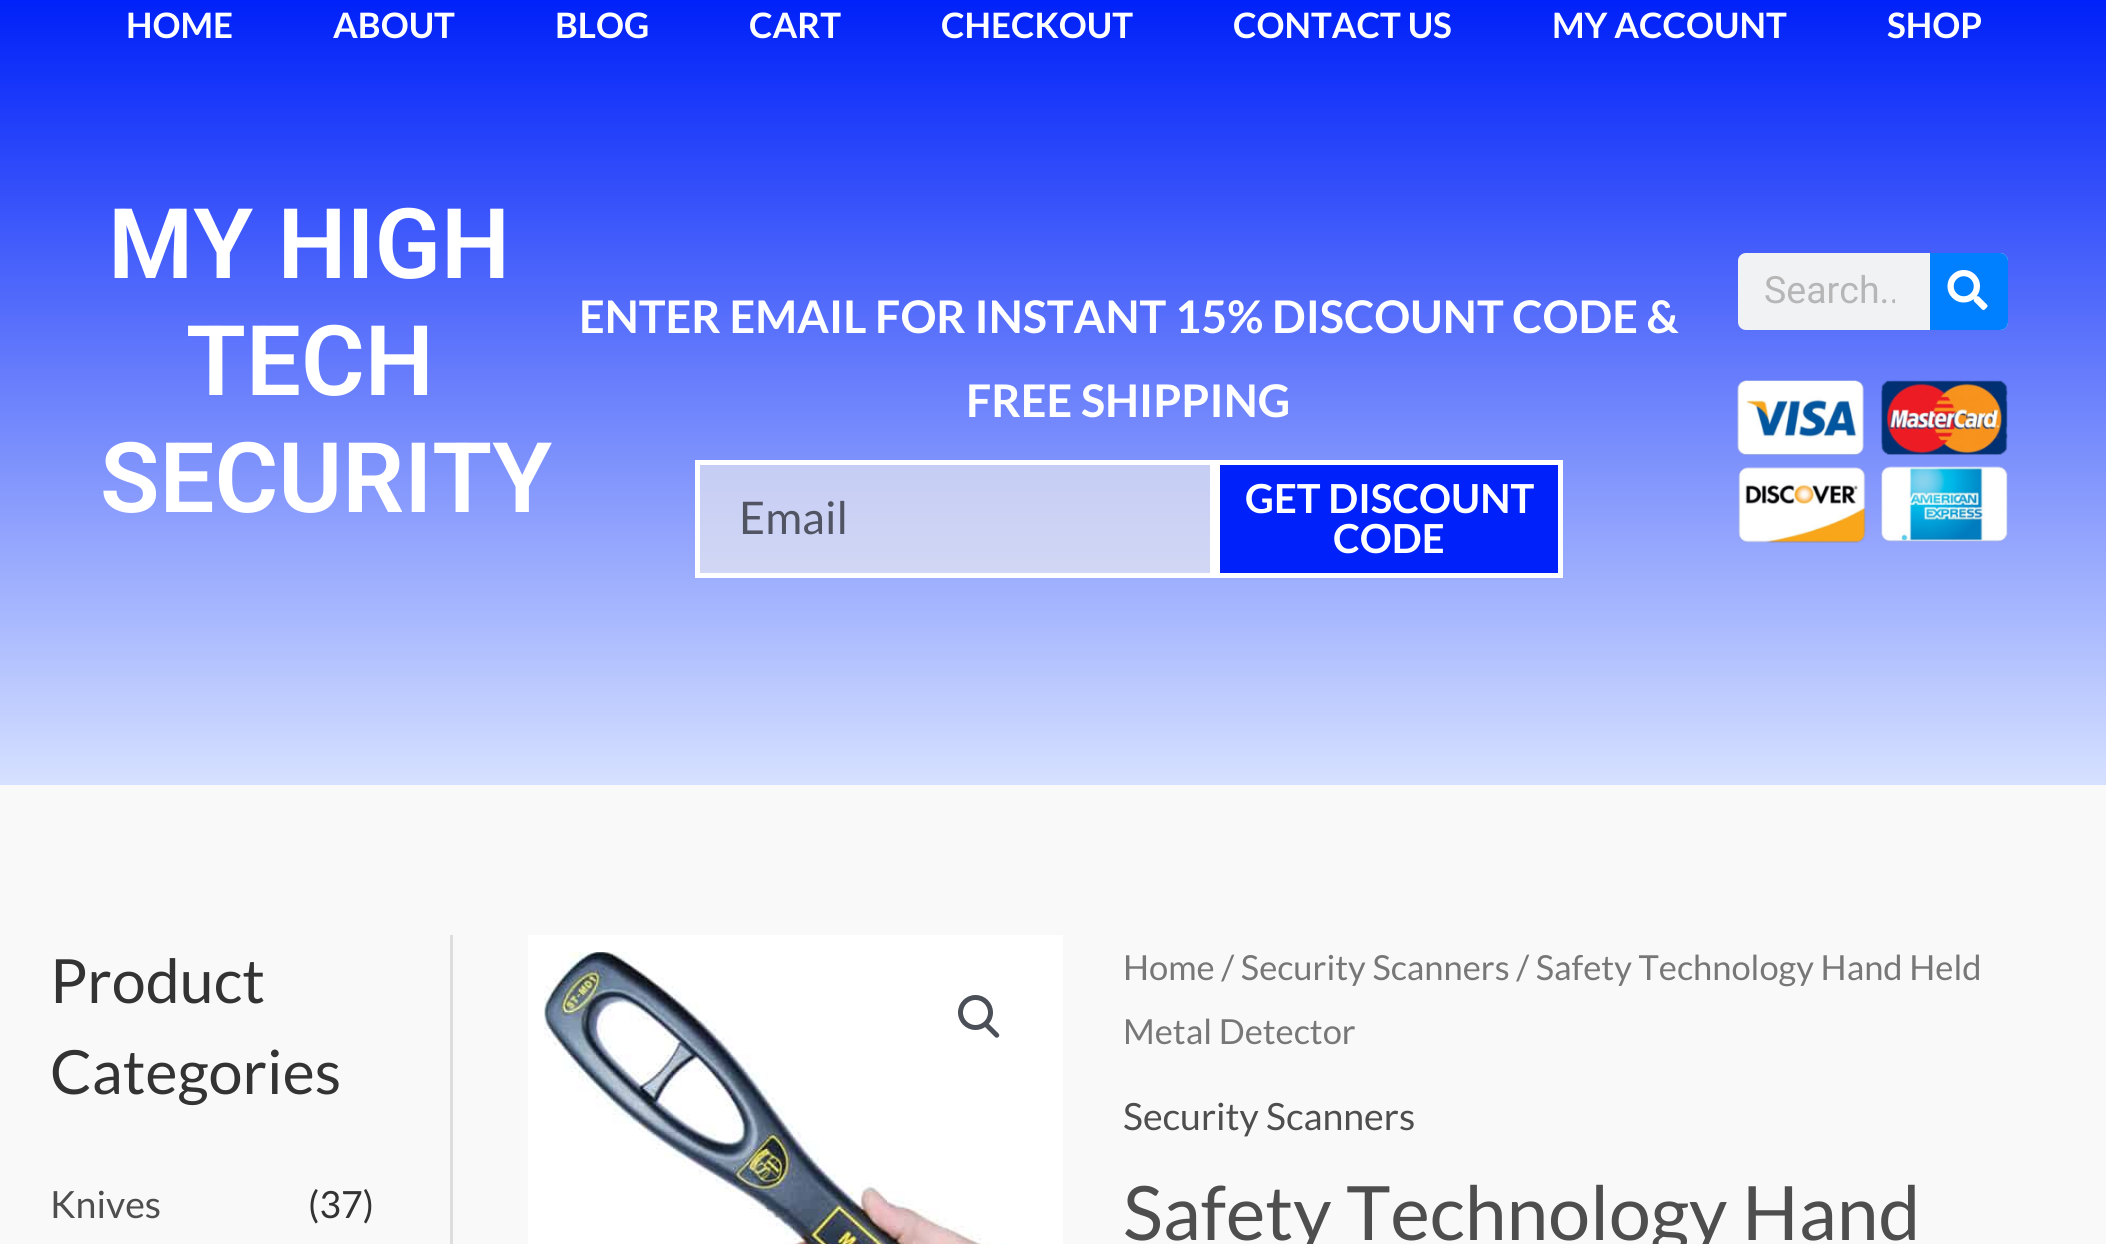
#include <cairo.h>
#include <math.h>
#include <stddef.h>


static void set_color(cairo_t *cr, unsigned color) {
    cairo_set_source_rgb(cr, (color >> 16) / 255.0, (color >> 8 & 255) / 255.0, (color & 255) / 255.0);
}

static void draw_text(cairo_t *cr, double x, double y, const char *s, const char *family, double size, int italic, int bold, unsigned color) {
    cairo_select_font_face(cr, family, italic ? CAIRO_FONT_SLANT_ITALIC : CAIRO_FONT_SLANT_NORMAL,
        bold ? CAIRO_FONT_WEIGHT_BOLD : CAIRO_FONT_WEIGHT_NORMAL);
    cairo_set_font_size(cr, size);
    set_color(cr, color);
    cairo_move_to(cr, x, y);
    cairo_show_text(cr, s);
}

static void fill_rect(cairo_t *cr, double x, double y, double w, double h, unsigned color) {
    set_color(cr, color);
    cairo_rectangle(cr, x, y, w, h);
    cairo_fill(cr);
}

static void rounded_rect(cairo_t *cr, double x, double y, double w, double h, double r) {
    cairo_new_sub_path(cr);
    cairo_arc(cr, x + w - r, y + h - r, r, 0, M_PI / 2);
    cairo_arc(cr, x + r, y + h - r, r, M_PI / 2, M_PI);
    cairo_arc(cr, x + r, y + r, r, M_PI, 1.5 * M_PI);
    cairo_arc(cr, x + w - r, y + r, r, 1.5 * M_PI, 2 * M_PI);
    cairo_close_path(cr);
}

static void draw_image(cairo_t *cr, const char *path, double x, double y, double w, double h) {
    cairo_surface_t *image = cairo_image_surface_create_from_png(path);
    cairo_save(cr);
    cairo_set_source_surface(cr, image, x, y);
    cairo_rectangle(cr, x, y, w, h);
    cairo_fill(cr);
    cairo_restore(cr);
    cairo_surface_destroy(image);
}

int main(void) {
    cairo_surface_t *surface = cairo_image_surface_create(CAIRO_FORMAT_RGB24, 2106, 1244);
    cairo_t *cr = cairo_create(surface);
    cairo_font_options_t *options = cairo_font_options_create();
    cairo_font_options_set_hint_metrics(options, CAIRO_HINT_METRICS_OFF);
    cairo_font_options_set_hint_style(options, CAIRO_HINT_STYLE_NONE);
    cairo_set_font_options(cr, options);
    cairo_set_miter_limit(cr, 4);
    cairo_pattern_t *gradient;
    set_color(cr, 0xF9F9F9);
    cairo_paint(cr);
    gradient = cairo_pattern_create_linear(1054, 0, 1054, 785);
    cairo_pattern_add_color_stop_rgba(gradient, 0, 0, 0.129, 0.976, 1);
    cairo_pattern_add_color_stop_rgba(gradient, 1, 0.839, 0.882, 1, 1);
    cairo_set_source(cr, gradient);
    cairo_pattern_destroy(gradient);
    cairo_rectangle(cr, 0, 0, 2106, 785);
    cairo_fill(cr);
    gradient = cairo_pattern_create_linear(1054, 0, 1054, 785);
    cairo_pattern_add_color_stop_rgba(gradient, 0, 0.592, 0.639, 0.953, 1);
    cairo_pattern_add_color_stop_rgba(gradient, 1, 0.902, 0.918, 0.961, 1);
    cairo_set_source(cr, gradient);
    cairo_pattern_destroy(gradient);
    cairo_rectangle(cr, 700, 465, 510, 108);
    cairo_fill(cr);
    draw_text(cr, 126, 38, "HOME", "Lato", 35, 0, 1, 0xFFFFFF);
    draw_text(cr, 333, 38, "ABOUT", "Lato", 35, 0, 1, 0xFFFFFF);
    draw_text(cr, 555, 38, "BLOG", "Lato", 35, 0, 1, 0xFFFFFF);
    draw_text(cr, 749, 38, "CART", "Lato", 35, 0, 1, 0xFFFFFF);
    draw_text(cr, 941, 38, "CHECKOUT", "Lato", 35, 0, 1, 0xFFFFFF);
    draw_text(cr, 1233, 38, "CONTACT US", "Lato", 35, 0, 1, 0xFFFFFF);
    draw_text(cr, 1552, 38, "MY ACCOUNT", "Lato", 35, 0, 1, 0xFFFFFF);
    draw_text(cr, 1887, 38, "SHOP", "Lato", 35, 0, 1, 0xFFFFFF);
    draw_text(cr, 108, 278, "MY HIGH", "Roboto SemiBold", 97.5, 0, 0, 0xFFFFFF);
    draw_text(cr, 186, 395, "TECH", "Roboto SemiBold", 97.5, 0, 0, 0xFFFFFF);
    draw_text(cr, 100, 512, "SECURITY", "Roboto SemiBold", 97.5, 0, 0, 0xFFFFFF);
    set_color(cr, 0xF1F2F3);
    rounded_rect(cr, 1738, 253, 270, 77, 8);
    cairo_fill(cr);
    cairo_save(cr);
    cairo_rectangle(cr, 1765, 268, 130, 45);
    cairo_clip(cr);
    draw_text(cr, 1764, 303, "Search..", "Roboto", 37.5, 0, 0, 0xB6B6B7);
    cairo_restore(cr);
    set_color(cr, 0x007FFF);
    cairo_new_path(cr);
    cairo_move_to(cr, 1930, 253);
    cairo_line_to(cr, 2000, 253);
    cairo_curve_to(cr, 2004.5, 253, 2008, 256.5, 2008, 261);
    cairo_line_to(cr, 2008, 322);
    cairo_curve_to(cr, 2008, 326.5, 2004.5, 330, 2000, 330);
    cairo_line_to(cr, 1930, 330);
    cairo_close_path(cr);
    cairo_fill(cr);
    draw_image(cr, "assets/img1.png", 1947, 270, 41, 40);
    draw_image(cr, "assets/img2.png", 1737, 380, 271, 163);
    draw_text(cr, 579, 333, "ENTER EMAIL FOR INSTANT 15% DISCOUNT CODE &", "Lato", 45, 0, 1, 0xFFFFFF);
    draw_text(cr, 966, 417, "FREE SHIPPING", "Lato", 45, 0, 1, 0xFFFFFF);
    cairo_rectangle(cr, 697.5, 462.5, 515, 113);
    cairo_set_line_width(cr, 5);
    cairo_stroke(cr);
    draw_text(cr, 739, 534, "Email", "Lato", 45, 0, 0, 0x515462);
    set_color(cr, 0x0021F9);
    cairo_rectangle(cr, 1217.5, 462.5, 343, 113);
    cairo_fill_preserve(cr);
    set_color(cr, 0xFFFFFF);
    cairo_stroke(cr);
    draw_text(cr, 1245, 513, "GET DISCOUNT", "Lato", 40, 0, 1, 0xFFFFFF);
    draw_text(cr, 1333, 553, "CODE", "Lato", 40, 0, 1, 0xFFFFFF);
    fill_rect(cr, 450, 935, 3, 309, 0xDDDDDD);
    draw_text(cr, 50, 1003, "Product", "Lato", 61, 0, 0, 0x333333);
    draw_text(cr, 50, 1094, "Categories", "Lato", 61, 0, 0, 0x333333);
    draw_text(cr, 50, 1218, "Knives", "Lato", 37.5, 0, 0, 0x4E4E4E);
    draw_text(cr, 308, 1218, "(37)", "Lato", 37.5, 0, 0, 0x333333);
    draw_image(cr, "assets/img3.png", 528, 935, 535, 309);
    cairo_arc(cr, 975.5, 1012.5, 15, 0, 2 * M_PI);
    set_color(cr, 0x4B4F58);
    cairo_stroke(cr);
    cairo_new_path(cr);
    cairo_move_to(cr, 984.5, 1023);
    cairo_curve_to(cr, 985.5, 1022, 987, 1022, 988, 1023);
    cairo_line_to(cr, 998.5, 1033.5);
    cairo_curve_to(cr, 999.5, 1034.5, 999.5, 1036, 998.5, 1037);
    cairo_curve_to(cr, 997.5, 1038, 996, 1038, 995, 1037);
    cairo_line_to(cr, 984.5, 1026.5);
    cairo_curve_to(cr, 983.5, 1025.5, 983.5, 1024, 984.5, 1023);
    cairo_close_path(cr);
    cairo_fill(cr);
    draw_text(cr, 1123, 980, "Home / Security Scanners / Safety Technology Hand Held", "Lato", 34.5, 0, 0, 0x777777);
    draw_text(cr, 1123, 1044, "Metal Detector", "Lato", 34.5, 0, 0, 0x777777);
    draw_text(cr, 1123, 1130, "Security Scanners", "Lato", 37.5, 0, 0, 0x4E4E4E);
    draw_text(cr, 1123, 1240, "Safety Technology Hand", "Lato", 75, 0, 0, 0x4E4E4E);
    cairo_surface_write_to_png(surface, "output.png");
    cairo_font_options_destroy(options);
    cairo_destroy(cr);
    cairo_surface_destroy(surface);
    return 0;
}
